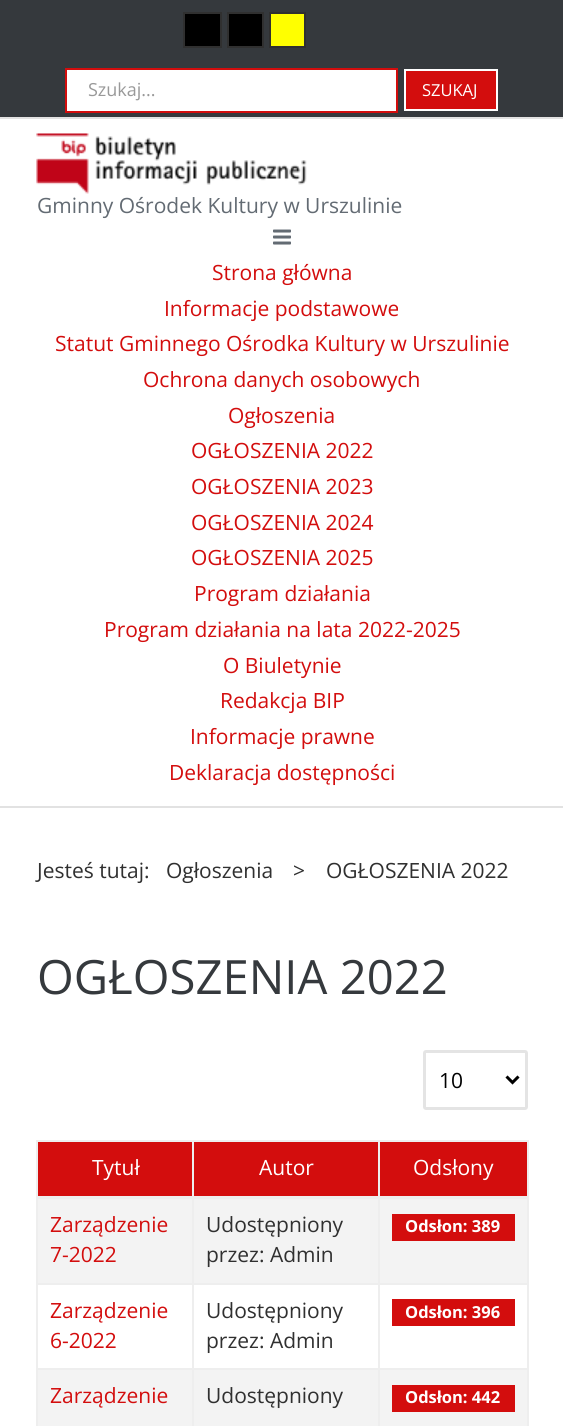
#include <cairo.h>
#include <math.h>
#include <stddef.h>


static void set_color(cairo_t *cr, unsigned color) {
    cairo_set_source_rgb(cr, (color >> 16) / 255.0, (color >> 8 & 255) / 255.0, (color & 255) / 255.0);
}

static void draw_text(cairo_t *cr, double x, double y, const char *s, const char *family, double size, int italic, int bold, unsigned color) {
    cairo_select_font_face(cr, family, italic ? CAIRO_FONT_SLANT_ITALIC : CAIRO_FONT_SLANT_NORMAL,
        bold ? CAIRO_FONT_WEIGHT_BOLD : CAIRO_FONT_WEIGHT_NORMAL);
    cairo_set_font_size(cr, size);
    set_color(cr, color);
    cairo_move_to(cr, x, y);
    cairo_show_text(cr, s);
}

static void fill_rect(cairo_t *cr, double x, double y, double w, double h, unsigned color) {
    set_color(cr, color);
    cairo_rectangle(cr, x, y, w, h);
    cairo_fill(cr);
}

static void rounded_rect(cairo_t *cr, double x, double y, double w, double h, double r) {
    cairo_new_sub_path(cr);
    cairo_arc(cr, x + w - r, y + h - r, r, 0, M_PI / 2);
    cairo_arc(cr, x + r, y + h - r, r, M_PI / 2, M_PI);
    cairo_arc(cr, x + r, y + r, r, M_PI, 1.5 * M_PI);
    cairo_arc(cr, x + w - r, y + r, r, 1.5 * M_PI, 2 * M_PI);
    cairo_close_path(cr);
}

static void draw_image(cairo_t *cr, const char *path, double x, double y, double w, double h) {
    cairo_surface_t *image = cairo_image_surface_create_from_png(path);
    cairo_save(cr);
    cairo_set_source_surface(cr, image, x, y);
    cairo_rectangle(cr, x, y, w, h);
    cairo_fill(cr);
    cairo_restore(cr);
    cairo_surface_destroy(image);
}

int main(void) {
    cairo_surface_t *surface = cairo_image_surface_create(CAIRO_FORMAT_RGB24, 563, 1426);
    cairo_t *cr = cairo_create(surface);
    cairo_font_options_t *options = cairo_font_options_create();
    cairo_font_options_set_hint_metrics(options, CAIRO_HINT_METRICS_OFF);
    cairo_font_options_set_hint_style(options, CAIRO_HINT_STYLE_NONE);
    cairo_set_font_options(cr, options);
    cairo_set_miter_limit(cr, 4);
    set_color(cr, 0xFFFFFF);
    cairo_paint(cr);
    fill_rect(cr, 0, 806, 563, 2, 0xE2E2E2);
    fill_rect(cr, 0, 0, 563, 117, 0x35393D);
    fill_rect(cr, 0, 117, 563, 2, 0xE2E2E2);
    set_color(cr, 0x000000);
    cairo_rectangle(cr, 184, 13, 37, 34);
    cairo_fill_preserve(cr);
    set_color(cr, 0x303030);
    cairo_stroke(cr);
    set_color(cr, 0x000000);
    cairo_rectangle(cr, 228, 13, 35, 34);
    cairo_fill_preserve(cr);
    set_color(cr, 0x303030);
    cairo_stroke(cr);
    set_color(cr, 0xFFFF00);
    cairo_rectangle(cr, 270, 13, 35, 34);
    cairo_fill_preserve(cr);
    set_color(cr, 0x303030);
    cairo_stroke(cr);
    set_color(cr, 0xFFFFFF);
    cairo_rectangle(cr, 66, 69, 331, 43);
    cairo_fill_preserve(cr);
    set_color(cr, 0xD30D0D);
    cairo_stroke(cr);
    draw_text(cr, 88, 96, "Szukaj...", "Open Sans", 18, 0, 0, 0x999999);
    set_color(cr, 0xD30D0D);
    cairo_rectangle(cr, 405, 70, 92, 40);
    cairo_fill_preserve(cr);
    set_color(cr, 0xFFFFFF);
    cairo_stroke(cr);
    draw_text(cr, 422, 96, "SZUKAJ", "Open Sans", 16.5, 0, 0, 0xFFFFFF);
    draw_image(cr, "assets/img1.png", 36, 133, 271, 61);
    draw_text(cr, 37, 213, "Gminny Ośrodek Kultury w Urszulinie", "Open Sans", 21, 0, 0, 0x636B73);
    draw_image(cr, "assets/img2.png", 273, 229, 18, 16);
    draw_text(cr, 212, 280, "Strona główna", "Open Sans", 21, 0, 0, 0xD30D0D);
    draw_text(cr, 164, 316, "Informacje podstawowe", "Open Sans", 21, 0, 0, 0xD30D0D);
    draw_text(cr, 55, 351, "Statut Gminnego Ośrodka Kultury w Urszulinie", "Open Sans", 21, 0, 0, 0xD30D0D);
    draw_text(cr, 143, 387, "Ochrona danych osobowych", "Open Sans", 21, 0, 0, 0xD30D0D);
    draw_text(cr, 228, 423, "Ogłoszenia", "Open Sans", 21, 0, 0, 0xD30D0D);
    draw_text(cr, 191, 458, "OGŁOSZENIA 2022", "Open Sans", 21, 0, 0, 0xD30D0D);
    draw_text(cr, 191, 494, "OGŁOSZENIA 2023", "Open Sans", 21, 0, 0, 0xD30D0D);
    draw_text(cr, 191, 530, "OGŁOSZENIA 2024", "Open Sans", 21, 0, 0, 0xD30D0D);
    draw_text(cr, 191, 565, "OGŁOSZENIA 2025", "Open Sans", 21, 0, 0, 0xD30D0D);
    draw_text(cr, 194, 601, "Program działania", "Open Sans", 21, 0, 0, 0xD30D0D);
    draw_text(cr, 104, 637, "Program działania na lata 2022-2025", "Open Sans", 21, 0, 0, 0xD30D0D);
    draw_text(cr, 223, 673, "O Biuletynie", "Open Sans", 21, 0, 0, 0xD30D0D);
    draw_text(cr, 220, 708, "Redakcja BIP", "Open Sans", 21, 0, 0, 0xD30D0D);
    draw_text(cr, 190, 744, "Informacje prawne", "Open Sans", 21, 0, 0, 0xD30D0D);
    draw_text(cr, 169, 780, "Deklaracja dostępności", "Open Sans", 21, 0, 0, 0xD30D0D);
    draw_text(cr, 37, 878, "Jesteś tutaj:", "Open Sans", 21, 0, 0, 0x303030);
    draw_text(cr, 166, 878, "Ogłoszenia", "Open Sans", 21, 0, 0, 0x303030);
    draw_text(cr, 293, 878, ">", "Open Sans", 21, 0, 0, 0x303030);
    draw_text(cr, 326, 878, "OGŁOSZENIA 2022", "Open Sans", 21, 0, 0, 0x303030);
    draw_text(cr, 37, 994, "OGŁOSZENIA 2022", "Open Sans", 47.25, 0, 0, 0x35393D);
    rounded_rect(cr, 424.5, 1051.5, 102, 57, 1.5);
    set_color(cr, 0xE4E4E4);
    cairo_set_line_width(cr, 3);
    cairo_stroke(cr);
    cairo_new_path(cr);
    cairo_move_to(cr, 506.5, 1076.5);
    cairo_line_to(cr, 512.5, 1082.5);
    cairo_line_to(cr, 518.5, 1076.5);
    set_color(cr, 0x000000);
    cairo_stroke(cr);
    draw_text(cr, 439, 1088, "10", "Open Sans", 21, 0, 0, 0x000000);
    fill_rect(cr, 36, 1140, 492, 2, 0xEEEEEE);
    fill_rect(cr, 527, 1140, 2, 286, 0xEEEEEE);
    fill_rect(cr, 36, 1140, 2, 286, 0xEEEEEE);
    fill_rect(cr, 38, 1142, 154, 54, 0xD30D0D);
    draw_text(cr, 92, 1175, "Tytuł", "Open Sans", 21, 0, 0, 0xFFFFFF);
    fill_rect(cr, 194, 1142, 184, 54, 0xD30D0D);
    draw_text(cr, 259, 1175, "Autor", "Open Sans", 21, 0, 0, 0xFFFFFF);
    fill_rect(cr, 380, 1142, 147, 54, 0xD30D0D);
    fill_rect(cr, 38, 1199, 489, 84, 0xF3F3F3);
    fill_rect(cr, 378, 1283, 150, 2, 0xEEEEEE);
    fill_rect(cr, 378, 1368, 150, 2, 0xEEEEEE);
    fill_rect(cr, 38, 1370, 489, 56, 0xF3F3F3);
    fill_rect(cr, 378, 1368, 2, 58, 0xEEEEEE);
    fill_rect(cr, 192, 1368, 188, 2, 0xEEEEEE);
    fill_rect(cr, 378, 1283, 2, 87, 0xEEEEEE);
    fill_rect(cr, 192, 1283, 188, 2, 0xEEEEEE);
    fill_rect(cr, 192, 1368, 2, 58, 0xEEEEEE);
    fill_rect(cr, 36, 1368, 158, 2, 0xEEEEEE);
    fill_rect(cr, 192, 1283, 2, 87, 0xEEEEEE);
    fill_rect(cr, 36, 1283, 158, 2, 0xEEEEEE);
    fill_rect(cr, 192, 1140, 2, 144, 0xEEEEEE);
    fill_rect(cr, 378, 1140, 2, 144, 0xEEEEEE);
    fill_rect(cr, 36, 1196, 492, 3, 0xEEEEEE);
    draw_text(cr, 413, 1175, "Odsłony", "Open Sans", 21, 0, 0, 0xFFFFFF);
    draw_text(cr, 50, 1232, "Zarządzenie", "Open Sans", 21, 0, 0, 0xD30D0D);
    draw_text(cr, 50, 1262, "7-2022", "Open Sans", 21, 0, 0, 0xD30D0D);
    draw_text(cr, 206, 1232, "Udostępniony", "Open Sans", 21, 0, 0, 0x303030);
    draw_text(cr, 206, 1262, "przez: Admin", "Open Sans", 21, 0, 0, 0x303030);
    fill_rect(cr, 392, 1214, 123, 27, 0xD30D0D);
    draw_text(cr, 405, 1232, "Odsłon: 389", "Open Sans", 16.5, 0, 1, 0xFFFFFF);
    draw_text(cr, 50, 1318, "Zarządzenie", "Open Sans", 21, 0, 0, 0xD30D0D);
    draw_text(cr, 50, 1348, "6-2022", "Open Sans", 21, 0, 0, 0xD30D0D);
    draw_text(cr, 206, 1318, "Udostępniony", "Open Sans", 21, 0, 0, 0x303030);
    draw_text(cr, 206, 1348, "przez: Admin", "Open Sans", 21, 0, 0, 0x303030);
    fill_rect(cr, 392, 1299, 123, 27, 0xD30D0D);
    draw_text(cr, 405, 1318, "Odsłon: 396", "Open Sans", 16.5, 0, 1, 0xFFFFFF);
    draw_text(cr, 50, 1403, "Zarządzenie", "Open Sans", 21, 0, 0, 0xD30D0D);
    draw_text(cr, 206, 1403, "Udostępniony", "Open Sans", 21, 0, 0, 0x303030);
    fill_rect(cr, 392, 1385, 123, 27, 0xD30D0D);
    draw_text(cr, 405, 1403, "Odsłon: 442", "Open Sans", 16.5, 0, 1, 0xFFFFFF);
    cairo_surface_write_to_png(surface, "output.png");
    cairo_font_options_destroy(options);
    cairo_destroy(cr);
    cairo_surface_destroy(surface);
    return 0;
}
